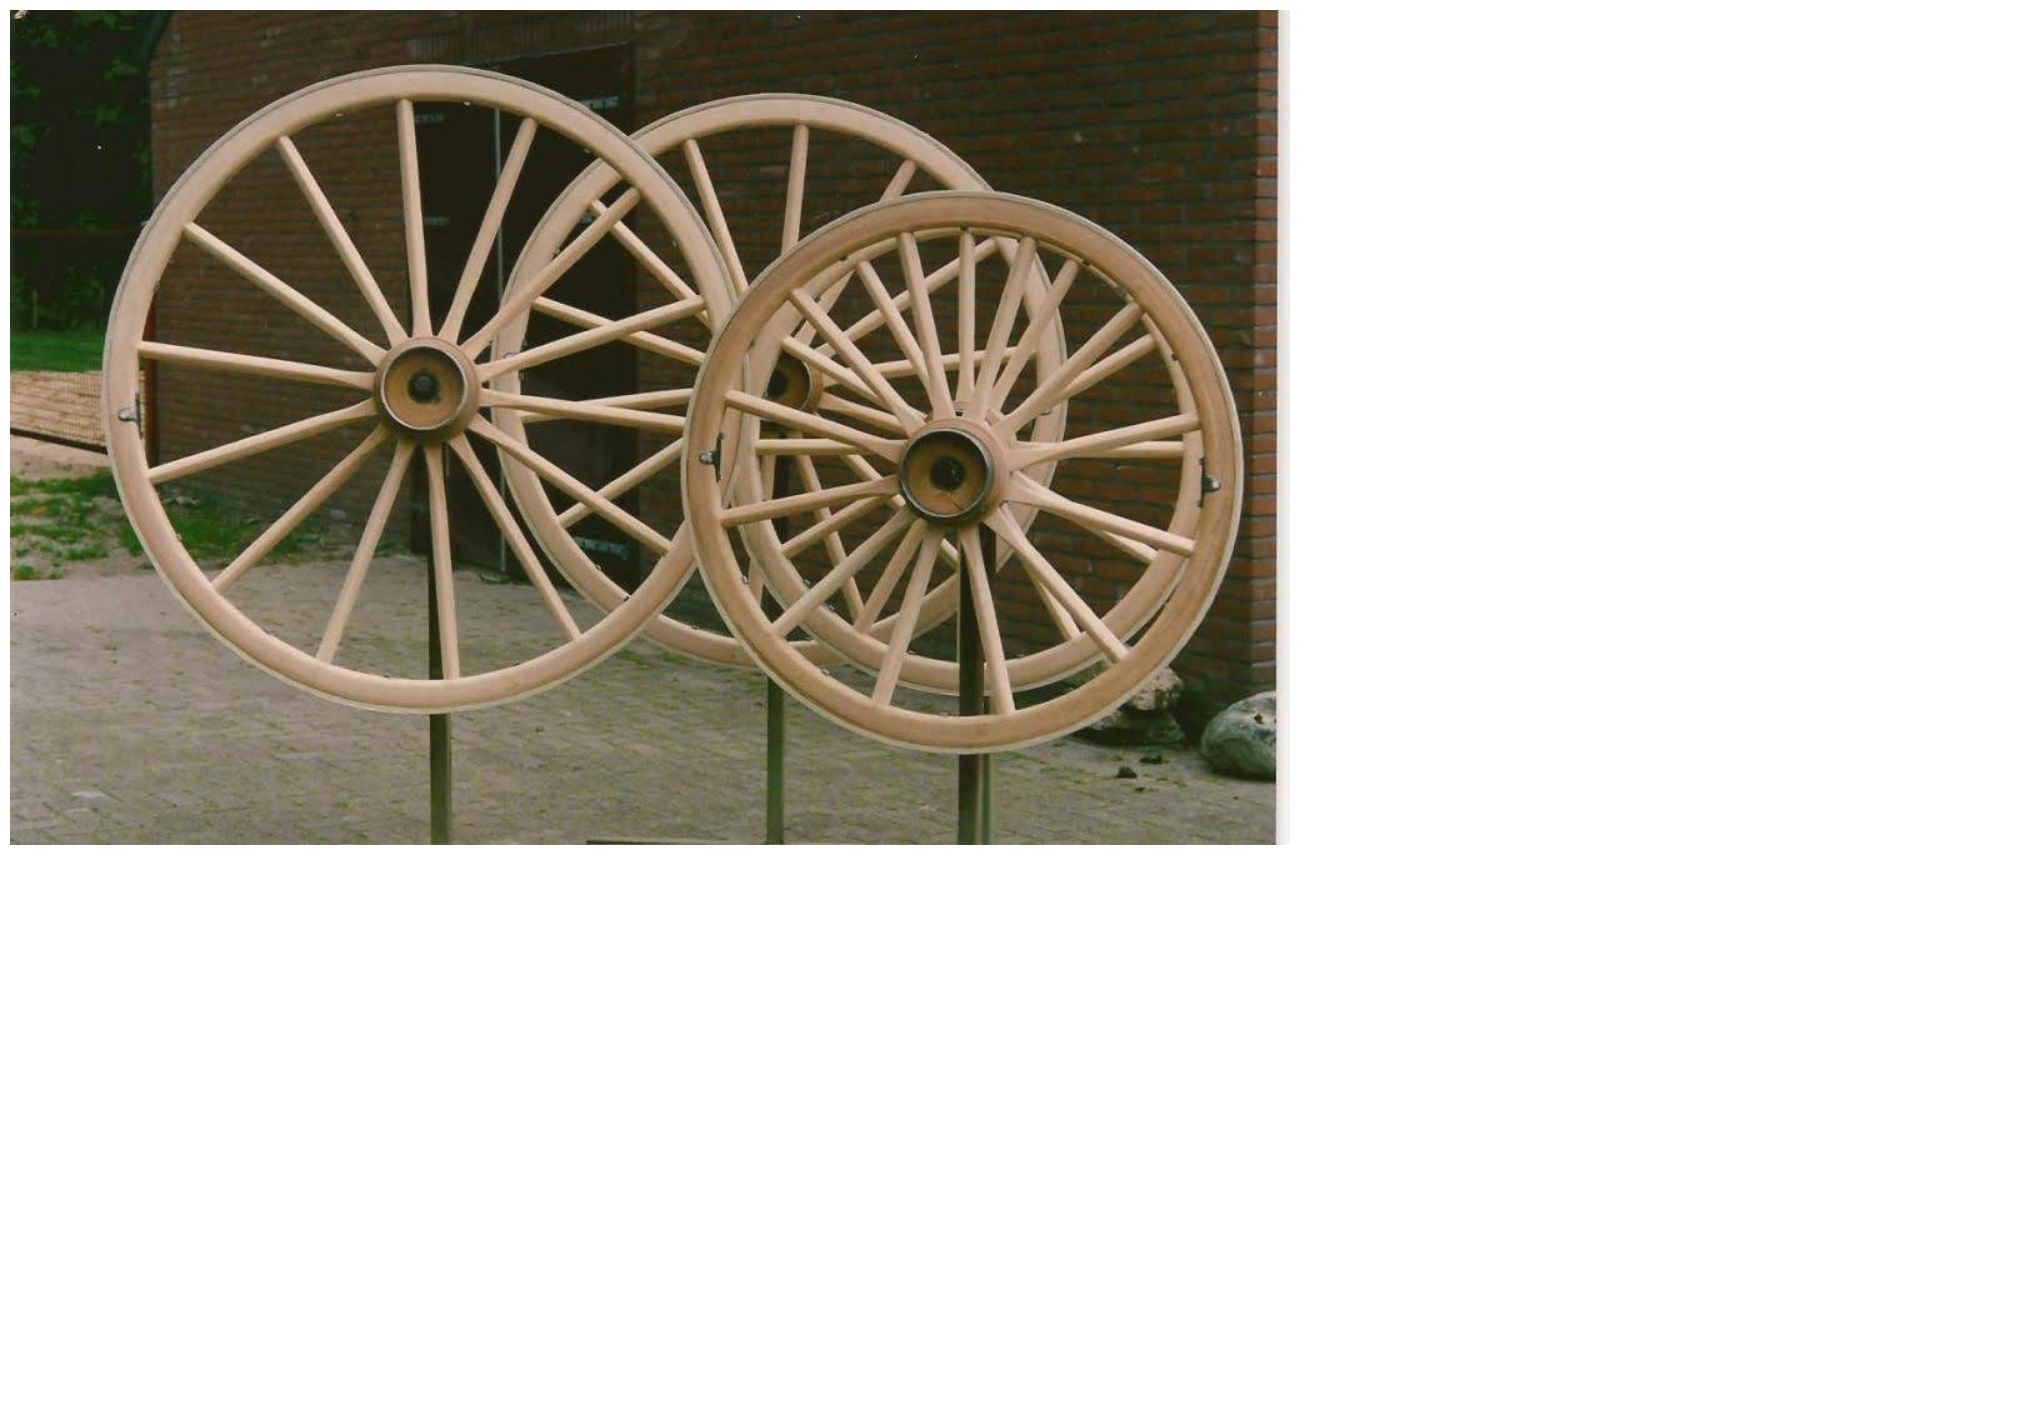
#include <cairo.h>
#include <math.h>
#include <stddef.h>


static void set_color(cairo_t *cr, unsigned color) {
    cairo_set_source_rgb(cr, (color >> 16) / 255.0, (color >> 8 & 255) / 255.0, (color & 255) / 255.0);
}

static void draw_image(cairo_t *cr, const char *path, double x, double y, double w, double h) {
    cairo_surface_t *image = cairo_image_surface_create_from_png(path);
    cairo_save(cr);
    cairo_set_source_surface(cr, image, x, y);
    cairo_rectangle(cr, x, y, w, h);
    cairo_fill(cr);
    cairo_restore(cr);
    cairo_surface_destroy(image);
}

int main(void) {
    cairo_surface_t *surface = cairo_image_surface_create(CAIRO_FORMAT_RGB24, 2033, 1419);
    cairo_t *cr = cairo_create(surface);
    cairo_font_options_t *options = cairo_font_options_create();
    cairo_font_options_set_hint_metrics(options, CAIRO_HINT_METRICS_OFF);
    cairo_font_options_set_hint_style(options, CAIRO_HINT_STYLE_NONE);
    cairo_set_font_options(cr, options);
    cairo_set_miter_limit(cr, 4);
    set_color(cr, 0xFFFFFF);
    cairo_paint(cr);
    draw_image(cr, "assets/img1.png", 10, 10, 1280, 835);
    cairo_surface_write_to_png(surface, "output.png");
    cairo_font_options_destroy(options);
    cairo_destroy(cr);
    cairo_surface_destroy(surface);
    return 0;
}
